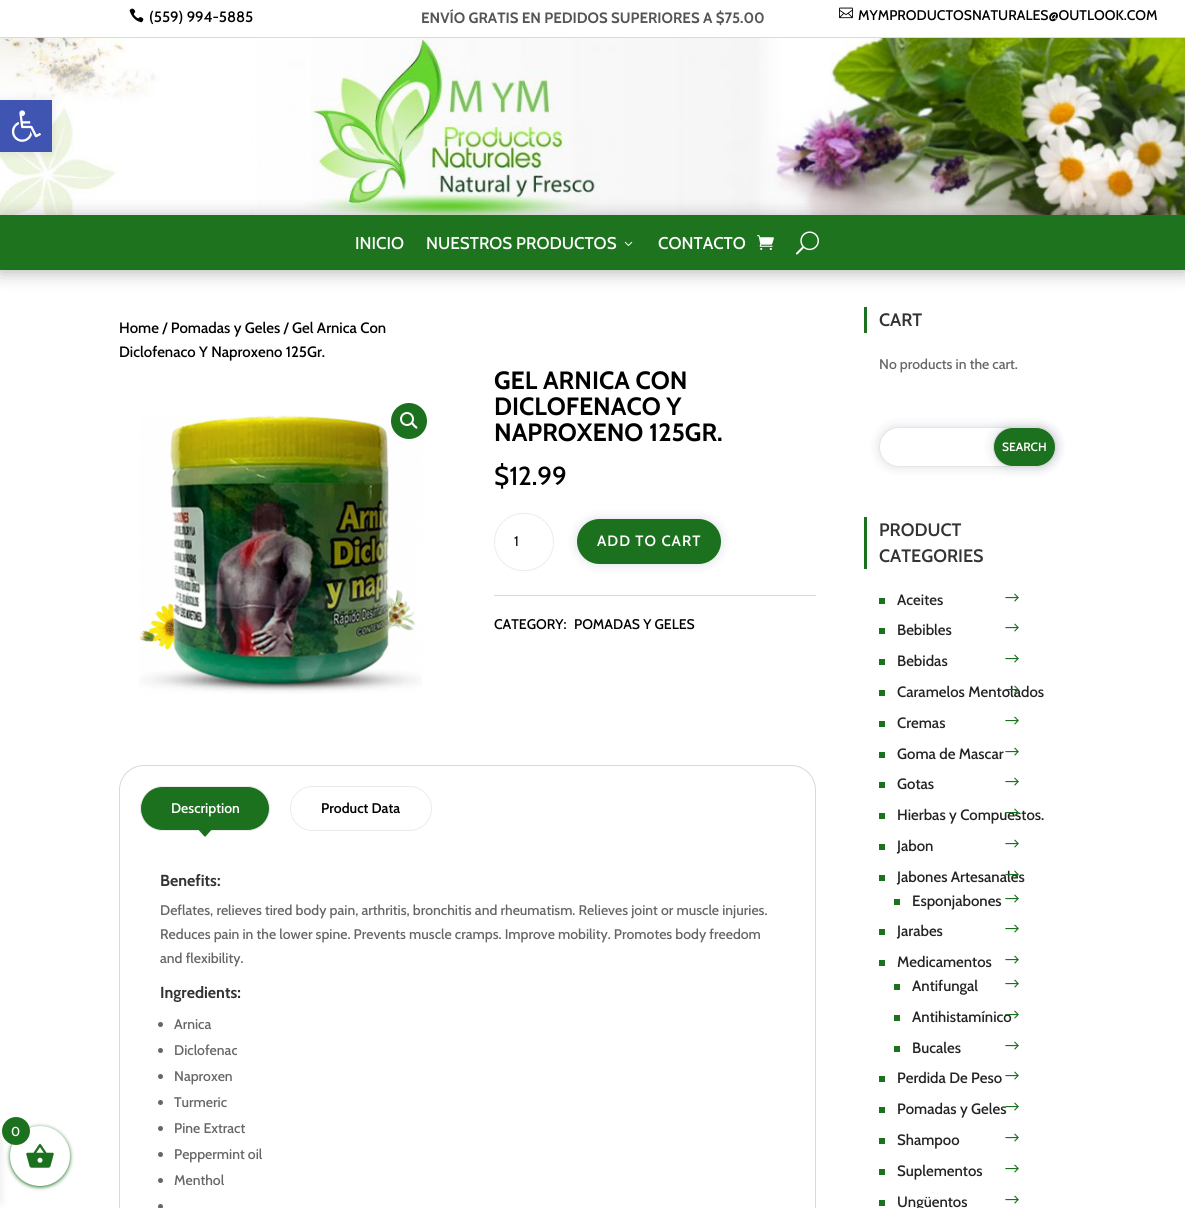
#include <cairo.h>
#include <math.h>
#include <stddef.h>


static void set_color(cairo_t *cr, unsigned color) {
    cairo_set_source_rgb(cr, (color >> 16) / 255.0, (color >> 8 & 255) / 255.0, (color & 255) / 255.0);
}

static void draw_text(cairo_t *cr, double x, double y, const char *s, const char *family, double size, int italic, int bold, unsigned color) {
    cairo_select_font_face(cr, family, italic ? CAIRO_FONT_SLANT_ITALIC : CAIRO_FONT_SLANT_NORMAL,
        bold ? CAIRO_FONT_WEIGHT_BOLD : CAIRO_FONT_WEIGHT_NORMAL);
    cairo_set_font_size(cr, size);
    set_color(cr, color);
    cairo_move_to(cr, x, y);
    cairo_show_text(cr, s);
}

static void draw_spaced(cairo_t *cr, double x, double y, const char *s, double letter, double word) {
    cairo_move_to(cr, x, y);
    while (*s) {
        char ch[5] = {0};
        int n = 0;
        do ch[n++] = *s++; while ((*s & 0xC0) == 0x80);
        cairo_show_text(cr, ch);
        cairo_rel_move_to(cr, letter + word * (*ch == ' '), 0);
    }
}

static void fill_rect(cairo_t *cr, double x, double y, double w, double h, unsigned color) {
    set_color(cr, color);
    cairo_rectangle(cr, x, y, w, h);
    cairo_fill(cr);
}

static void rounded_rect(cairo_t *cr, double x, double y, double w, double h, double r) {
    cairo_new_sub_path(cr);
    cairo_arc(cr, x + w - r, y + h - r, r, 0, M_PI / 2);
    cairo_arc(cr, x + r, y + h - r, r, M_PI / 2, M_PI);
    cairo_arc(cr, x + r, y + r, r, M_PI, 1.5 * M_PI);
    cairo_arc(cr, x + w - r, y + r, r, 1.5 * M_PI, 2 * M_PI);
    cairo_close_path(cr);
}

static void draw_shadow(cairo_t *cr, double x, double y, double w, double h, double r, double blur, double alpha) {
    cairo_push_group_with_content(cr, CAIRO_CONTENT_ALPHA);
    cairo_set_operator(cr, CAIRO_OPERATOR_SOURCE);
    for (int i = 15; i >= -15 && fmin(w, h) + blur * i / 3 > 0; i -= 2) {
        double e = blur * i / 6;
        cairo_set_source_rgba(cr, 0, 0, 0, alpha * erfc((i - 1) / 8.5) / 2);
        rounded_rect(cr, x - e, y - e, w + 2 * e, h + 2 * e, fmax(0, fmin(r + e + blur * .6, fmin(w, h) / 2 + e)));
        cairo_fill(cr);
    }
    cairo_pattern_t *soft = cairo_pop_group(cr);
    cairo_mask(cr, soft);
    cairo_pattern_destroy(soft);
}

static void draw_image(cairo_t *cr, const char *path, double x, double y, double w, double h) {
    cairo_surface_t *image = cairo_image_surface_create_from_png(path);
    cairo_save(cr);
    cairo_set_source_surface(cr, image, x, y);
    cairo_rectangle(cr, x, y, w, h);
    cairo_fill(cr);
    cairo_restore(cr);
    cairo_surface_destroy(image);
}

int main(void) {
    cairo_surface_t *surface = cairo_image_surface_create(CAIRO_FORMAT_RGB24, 1185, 1208);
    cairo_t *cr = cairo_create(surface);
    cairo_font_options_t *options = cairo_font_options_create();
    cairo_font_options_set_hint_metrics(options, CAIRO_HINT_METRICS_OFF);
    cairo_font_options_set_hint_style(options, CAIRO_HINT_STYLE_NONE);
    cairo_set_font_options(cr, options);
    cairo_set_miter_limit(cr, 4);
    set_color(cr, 0xFFFFFF);
    cairo_paint(cr);
    draw_image(cr, "assets/img4.png", 0, 38, 1185, 177);
    set_color(cr, 0x000000);
    draw_shadow(cr, 0, 100, 52, 52, 0, 5, 0.1);
    fill_rect(cr, 0, 100, 52, 52, 0x4054B2);
    draw_image(cr, "assets/img1.png", 11, 110, 30, 32);
    fill_rect(cr, 0, 37, 1185, 1, 0xDADADA);
    draw_image(cr, "assets/img2.png", 129, 8, 15, 15);
    draw_text(cr, 149, 22, "(559) 994-5885", "Cabin Medium", 15, 0, 0, 0x000000);
    draw_text(cr, 421, 23, "ENVÍO GRATIS EN PEDIDOS SUPERIORES A $75.00", "Cabin", 15, 0, 1, 0x555555);
    draw_image(cr, "assets/img3.png", 839, 7, 14, 12);
    draw_text(cr, 858, 20, "MYMPRODUCTOSNATURALES@OUTLOOK.COM", "Cabin Medium", 14, 0, 0, 0x000000);
    set_color(cr, 0x000000);
    draw_shadow(cr, 0, 217, 1185, 55, 0, 9, 0.3);
    fill_rect(cr, 0, 215, 1185, 55, 0x1E731E);
    draw_text(cr, 355, 249, "INICIO", "Cabin Medium", 17, 0, 0, 0xFFFFFF);
    draw_text(cr, 426, 249, "NUESTROS PRODUCTOS", "Cabin Medium", 17, 0, 0, 0xFFFFFF);
    draw_image(cr, "assets/img5.png", 624, 241, 9, 5);
    draw_text(cr, 658, 249, "CONTACTO", "Cabin Medium", 17, 0, 0, 0xFFFFFF);
    draw_image(cr, "assets/img6.png", 757, 235, 17, 15);
    draw_image(cr, "assets/img7.png", 795, 231, 24, 24);
    draw_text(cr, 119, 333, "Home / Pomadas y Geles / Gel Arnica Con", "Cabin Medium", 15, 0, 0, 0x000000);
    draw_text(cr, 119, 357, "Diclofenaco Y Naproxeno 125Gr.", "Cabin Medium", 15, 0, 0, 0x000000);
    draw_image(cr, "assets/img8.png", 139, 415, 283, 279);
    set_color(cr, 0x1C711F);
    cairo_arc(cr, 409, 421, 18, 0, 2 * M_PI);
    cairo_fill(cr);
    cairo_arc(cr, 407, 419, 6, 0, 2 * M_PI);
    set_color(cr, 0xFFFFFF);
    cairo_stroke(cr);
    cairo_new_path(cr);
    cairo_move_to(cr, 411.5, 422.5);
    cairo_curve_to(cr, 413, 421.5, 414.5, 424.5, 415, 425);
    cairo_curve_to(cr, 415.5, 425.5, 418.5, 427, 417, 428.5);
    cairo_curve_to(cr, 416, 429.5, 414.5, 427, 413.5, 426.5);
    cairo_curve_to(cr, 413, 425.5, 410.5, 424, 411.5, 422.5);
    cairo_close_path(cr);
    cairo_fill(cr);
    draw_text(cr, 494, 389, "GEL ARNICA CON", "Cabin", 25, 0, 1, 0x000000);
    draw_text(cr, 494, 415, "DICLOFENACO Y", "Cabin", 25, 0, 1, 0x000000);
    draw_text(cr, 494, 441, "NAPROXENO 125GR.", "Cabin", 25, 0, 1, 0x000000);
    draw_text(cr, 494, 485, "$12.99", "Cabin Medium", 26, 0, 0, 0x000000);
    rounded_rect(cr, 494.5, 513.5, 59, 57, 28.5);
    set_color(cr, 0xEAECEE);
    cairo_set_line_width(cr, 1);
    cairo_stroke(cr);
    draw_text(cr, 514, 546, "1", "Cabin", 14, 0, 0, 0x000000);
    set_color(cr, 0x06163A);
    draw_shadow(cr, 577, 519, 144, 45, 22.5, 5.5, 0.14);
    set_color(cr, 0x1C711F);
    rounded_rect(cr, 577, 519, 144, 45, 22.5);
    cairo_fill(cr);
    cairo_select_font_face(cr, "Cabin SemiBold", CAIRO_FONT_SLANT_NORMAL, CAIRO_FONT_WEIGHT_NORMAL);
    cairo_set_font_size(cr, 15);
    set_color(cr, 0xFFFFFF);
    draw_spaced(cr, 597, 546, "ADD TO CART", 1, 0);
    fill_rect(cr, 494, 595, 322, 1, 0xDADADA);
    draw_text(cr, 494, 629, "CATEGORY:", "Cabin Medium", 14, 0, 0, 0x000000);
    draw_text(cr, 574, 629, "POMADAS Y GELES", "Cabin Medium", 14, 0, 0, 0x000000);
    rounded_rect(cr, 119.5, 765.5, 696, 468, 24.5);
    set_color(cr, 0xD9D9D9);
    cairo_stroke(cr);
    set_color(cr, 0x1C711F);
    rounded_rect(cr, 140.5, 786.5, 129, 44, 22);
    cairo_fill_preserve(cr);
    set_color(cr, 0xEBEBEB);
    cairo_stroke(cr);
    draw_text(cr, 171, 813, "Description", "Cabin SemiBold", 14, 0, 0, 0xFFFFFF);
    draw_image(cr, "assets/img9.png", 198, 830, 14, 7);
    rounded_rect(cr, 290.5, 786.5, 141, 44, 22);
    set_color(cr, 0xEBEBEB);
    cairo_stroke(cr);
    draw_text(cr, 321, 813, "Product Data", "Cabin SemiBold", 14, 0, 0, 0x000000);
    draw_text(cr, 160, 886, "Benefits:", "Cabin", 16, 0, 1, 0x333333);
    draw_text(cr, 160, 915, "Deflates, relieves tired body pain, arthritis, bronchitis and rheumatism. Relieves joint or muscle injuries.", "Cabin Medium", 14, 0, 0, 0x666666);
    draw_text(cr, 160, 939, "Reduces pain in the lower spine. Prevents muscle cramps. Improve mobility. Promotes body freedom", "Cabin Medium", 14, 0, 0, 0x666666);
    draw_text(cr, 160, 963, "and flexibility.", "Cabin Medium", 14, 0, 0, 0x666666);
    draw_text(cr, 160, 998, "Ingredients:", "Cabin", 16, 0, 1, 0x333333);
    set_color(cr, 0x666666);
    cairo_new_path(cr);
    cairo_arc(cr, 160.5, 1024.5, 2.5, 0, 2 * M_PI);
    cairo_fill(cr);
    draw_text(cr, 174, 1029, "Arnica", "Cabin Medium", 14, 0, 0, 0x666666);
    cairo_new_path(cr);
    cairo_arc(cr, 160.5, 1050.5, 2.5, 0, 2 * M_PI);
    cairo_fill(cr);
    draw_text(cr, 174, 1055, "Diclofenac", "Cabin Medium", 14, 0, 0, 0x666666);
    cairo_new_path(cr);
    cairo_arc(cr, 160.5, 1076.5, 2.5, 0, 2 * M_PI);
    cairo_fill(cr);
    draw_text(cr, 174, 1081, "Naproxen", "Cabin Medium", 14, 0, 0, 0x666666);
    cairo_new_path(cr);
    cairo_arc(cr, 160.5, 1102.5, 2.5, 0, 2 * M_PI);
    cairo_fill(cr);
    draw_text(cr, 174, 1107, "Turmeric", "Cabin Medium", 14, 0, 0, 0x666666);
    cairo_new_path(cr);
    cairo_arc(cr, 160.5, 1128.5, 2.5, 0, 2 * M_PI);
    cairo_fill(cr);
    draw_text(cr, 174, 1133, "Pine Extract", "Cabin Medium", 14, 0, 0, 0x666666);
    cairo_new_path(cr);
    cairo_arc(cr, 160.5, 1154.5, 2.5, 0, 2 * M_PI);
    cairo_fill(cr);
    draw_text(cr, 174, 1159, "Peppermint oil", "Cabin Medium", 14, 0, 0, 0x666666);
    cairo_new_path(cr);
    cairo_arc(cr, 160.5, 1180.5, 2.5, 0, 2 * M_PI);
    cairo_fill(cr);
    draw_text(cr, 174, 1185, "Menthol", "Cabin Medium", 14, 0, 0, 0x666666);
    cairo_new_path(cr);
    cairo_arc(cr, 160.5, 1206.5, 2.5, 0, 2 * M_PI);
    cairo_fill(cr);
    fill_rect(cr, 864, 307, 3, 26, 0x1C711F);
    draw_text(cr, 879, 326, "CART", "Cabin SemiBold", 18, 0, 0, 0x333333);
    draw_text(cr, 879, 369, "No products in the cart.", "Cabin Medium", 14, 0, 0, 0x666666);
    set_color(cr, 0x06163A);
    draw_shadow(cr, 879, 427, 177, 40, 20, 5.5, 0.14);
    set_color(cr, 0xFFFFFF);
    rounded_rect(cr, 879.5, 427.5, 176, 39, 19.5);
    cairo_fill_preserve(cr);
    set_color(cr, 0xE5E5E5);
    cairo_stroke(cr);
    set_color(cr, 0x06163A);
    draw_shadow(cr, 993, 427, 63, 40, 20, 5.5, 0.14);
    set_color(cr, 0x1C711F);
    rounded_rect(cr, 993.5, 427.5, 62, 39, 19.5);
    cairo_fill_preserve(cr);
    set_color(cr, 0xDDDDDD);
    cairo_stroke(cr);
    draw_text(cr, 1002, 451, "SEARCH", "Cabin SemiBold", 12, 0, 0, 0xFFFFFF);
    fill_rect(cr, 864, 517, 3, 52, 0x1C711F);
    draw_text(cr, 879, 536, "PRODUCT", "Cabin SemiBold", 18, 0, 0, 0x333333);
    draw_text(cr, 879, 562, "CATEGORIES", "Cabin SemiBold", 18, 0, 0, 0x333333);
    fill_rect(cr, 879, 598, 6, 6, 0x1C711F);
    draw_text(cr, 897, 605, "Aceites", "Cabin Medium", 15, 0, 0, 0x232323);
    draw_image(cr, "assets/img10.png", 1005, 593, 14, 9);
    fill_rect(cr, 879, 628, 6, 6, 0x1C711F);
    draw_text(cr, 897, 635, "Bebibles", "Cabin Medium", 15, 0, 0, 0x232323);
    draw_image(cr, "assets/img10.png", 1005, 623, 14, 9);
    fill_rect(cr, 879, 659, 6, 6, 0x1C711F);
    draw_text(cr, 897, 666, "Bebidas", "Cabin Medium", 15, 0, 0, 0x232323);
    draw_image(cr, "assets/img10.png", 1005, 654, 14, 9);
    fill_rect(cr, 879, 690, 6, 6, 0x1C711F);
    draw_text(cr, 897, 697, "Caramelos Mentolados", "Cabin Medium", 15, 0, 0, 0x232323);
    draw_image(cr, "assets/img11.png", 1005, 685, 14, 9);
    fill_rect(cr, 879, 721, 6, 6, 0x1C711F);
    draw_text(cr, 897, 728, "Cremas", "Cabin Medium", 15, 0, 0, 0x232323);
    draw_image(cr, "assets/img10.png", 1005, 716, 14, 9);
    fill_rect(cr, 879, 752, 6, 6, 0x1C711F);
    draw_text(cr, 897, 759, "Goma de Mascar", "Cabin Medium", 15, 0, 0, 0x232323);
    draw_image(cr, "assets/img10.png", 1005, 747, 14, 9);
    fill_rect(cr, 879, 782, 6, 6, 0x1C711F);
    draw_text(cr, 897, 789, "Gotas", "Cabin Medium", 15, 0, 0, 0x232323);
    draw_image(cr, "assets/img10.png", 1005, 777, 14, 9);
    fill_rect(cr, 879, 813, 6, 6, 0x1C711F);
    draw_text(cr, 897, 820, "Hierbas y Compuestos.", "Cabin Medium", 15, 0, 0, 0x232323);
    draw_image(cr, "assets/img12.png", 1005, 808, 14, 9);
    fill_rect(cr, 879, 844, 6, 6, 0x1C711F);
    draw_text(cr, 897, 851, "Jabon", "Cabin Medium", 15, 0, 0, 0x232323);
    draw_image(cr, "assets/img10.png", 1005, 839, 14, 9);
    fill_rect(cr, 879, 875, 6, 6, 0x1C711F);
    draw_text(cr, 897, 882, "Jabones Artesanales", "Cabin Medium", 15, 0, 0, 0x232323);
    draw_image(cr, "assets/img13.png", 1005, 870, 14, 9);
    fill_rect(cr, 894, 899, 6, 6, 0x1C711F);
    draw_text(cr, 912, 906, "Esponjabones", "Cabin Medium", 15, 0, 0, 0x232323);
    draw_image(cr, "assets/img10.png", 1005, 894, 14, 9);
    fill_rect(cr, 879, 929, 6, 6, 0x1C711F);
    draw_text(cr, 897, 936, "Jarabes", "Cabin Medium", 15, 0, 0, 0x232323);
    draw_image(cr, "assets/img10.png", 1005, 924, 14, 9);
    fill_rect(cr, 879, 960, 6, 6, 0x1C711F);
    draw_text(cr, 897, 967, "Medicamentos", "Cabin Medium", 15, 0, 0, 0x232323);
    draw_image(cr, "assets/img10.png", 1005, 955, 14, 9);
    fill_rect(cr, 894, 984, 6, 6, 0x1C711F);
    draw_text(cr, 912, 991, "Antifungal", "Cabin Medium", 15, 0, 0, 0x232323);
    draw_image(cr, "assets/img10.png", 1005, 979, 14, 9);
    fill_rect(cr, 894, 1015, 6, 6, 0x1C711F);
    draw_text(cr, 912, 1022, "Antihistamínico", "Cabin Medium", 15, 0, 0, 0x232323);
    draw_image(cr, "assets/img14.png", 1005, 1010, 14, 9);
    fill_rect(cr, 894, 1046, 6, 6, 0x1C711F);
    draw_text(cr, 912, 1053, "Bucales", "Cabin Medium", 15, 0, 0, 0x232323);
    draw_image(cr, "assets/img10.png", 1005, 1041, 14, 9);
    fill_rect(cr, 879, 1076, 6, 6, 0x1C711F);
    draw_text(cr, 897, 1083, "Perdida De Peso", "Cabin Medium", 15, 0, 0, 0x232323);
    draw_image(cr, "assets/img10.png", 1005, 1071, 14, 9);
    fill_rect(cr, 879, 1107, 6, 6, 0x1C711F);
    draw_text(cr, 897, 1114, "Pomadas y Geles", "Cabin Medium", 15, 0, 0, 0x232323);
    draw_image(cr, "assets/img15.png", 1005, 1102, 14, 9);
    fill_rect(cr, 879, 1138, 6, 6, 0x1C711F);
    draw_text(cr, 897, 1145, "Shampoo", "Cabin Medium", 15, 0, 0, 0x232323);
    draw_image(cr, "assets/img10.png", 1005, 1133, 14, 9);
    fill_rect(cr, 879, 1169, 6, 6, 0x1C711F);
    draw_text(cr, 897, 1176, "Suplementos", "Cabin Medium", 15, 0, 0, 0x232323);
    draw_image(cr, "assets/img10.png", 1005, 1164, 14, 9);
    fill_rect(cr, 879, 1200, 6, 6, 0x1C711F);
    draw_text(cr, 897, 1207, "Ungüentos", "Cabin Medium", 15, 0, 0, 0x232323);
    draw_image(cr, "assets/img10.png", 1005, 1195, 14, 9);
    set_color(cr, 0x000000);
    draw_shadow(cr, -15, 1133, 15, 70, 0, 5, 0.1);
    set_color(cr, 0x1C711F);
    draw_shadow(cr, 10, 1127, 60, 60, 30, 2, 1);
    set_color(cr, 0xFFFFFF);
    cairo_arc(cr, 40, 1156, 30, 0, 2 * M_PI);
    cairo_fill(cr);
    draw_image(cr, "assets/img16.png", 26, 1144, 28, 24);
    set_color(cr, 0x1C711F);
    cairo_arc(cr, 16, 1131, 14, 0, 2 * M_PI);
    cairo_fill(cr);
    draw_text(cr, 11, 1136, "0", "Cabin Medium", 13, 0, 0, 0xFFFFFF);
    cairo_surface_write_to_png(surface, "output.png");
    cairo_font_options_destroy(options);
    cairo_destroy(cr);
    cairo_surface_destroy(surface);
    return 0;
}
